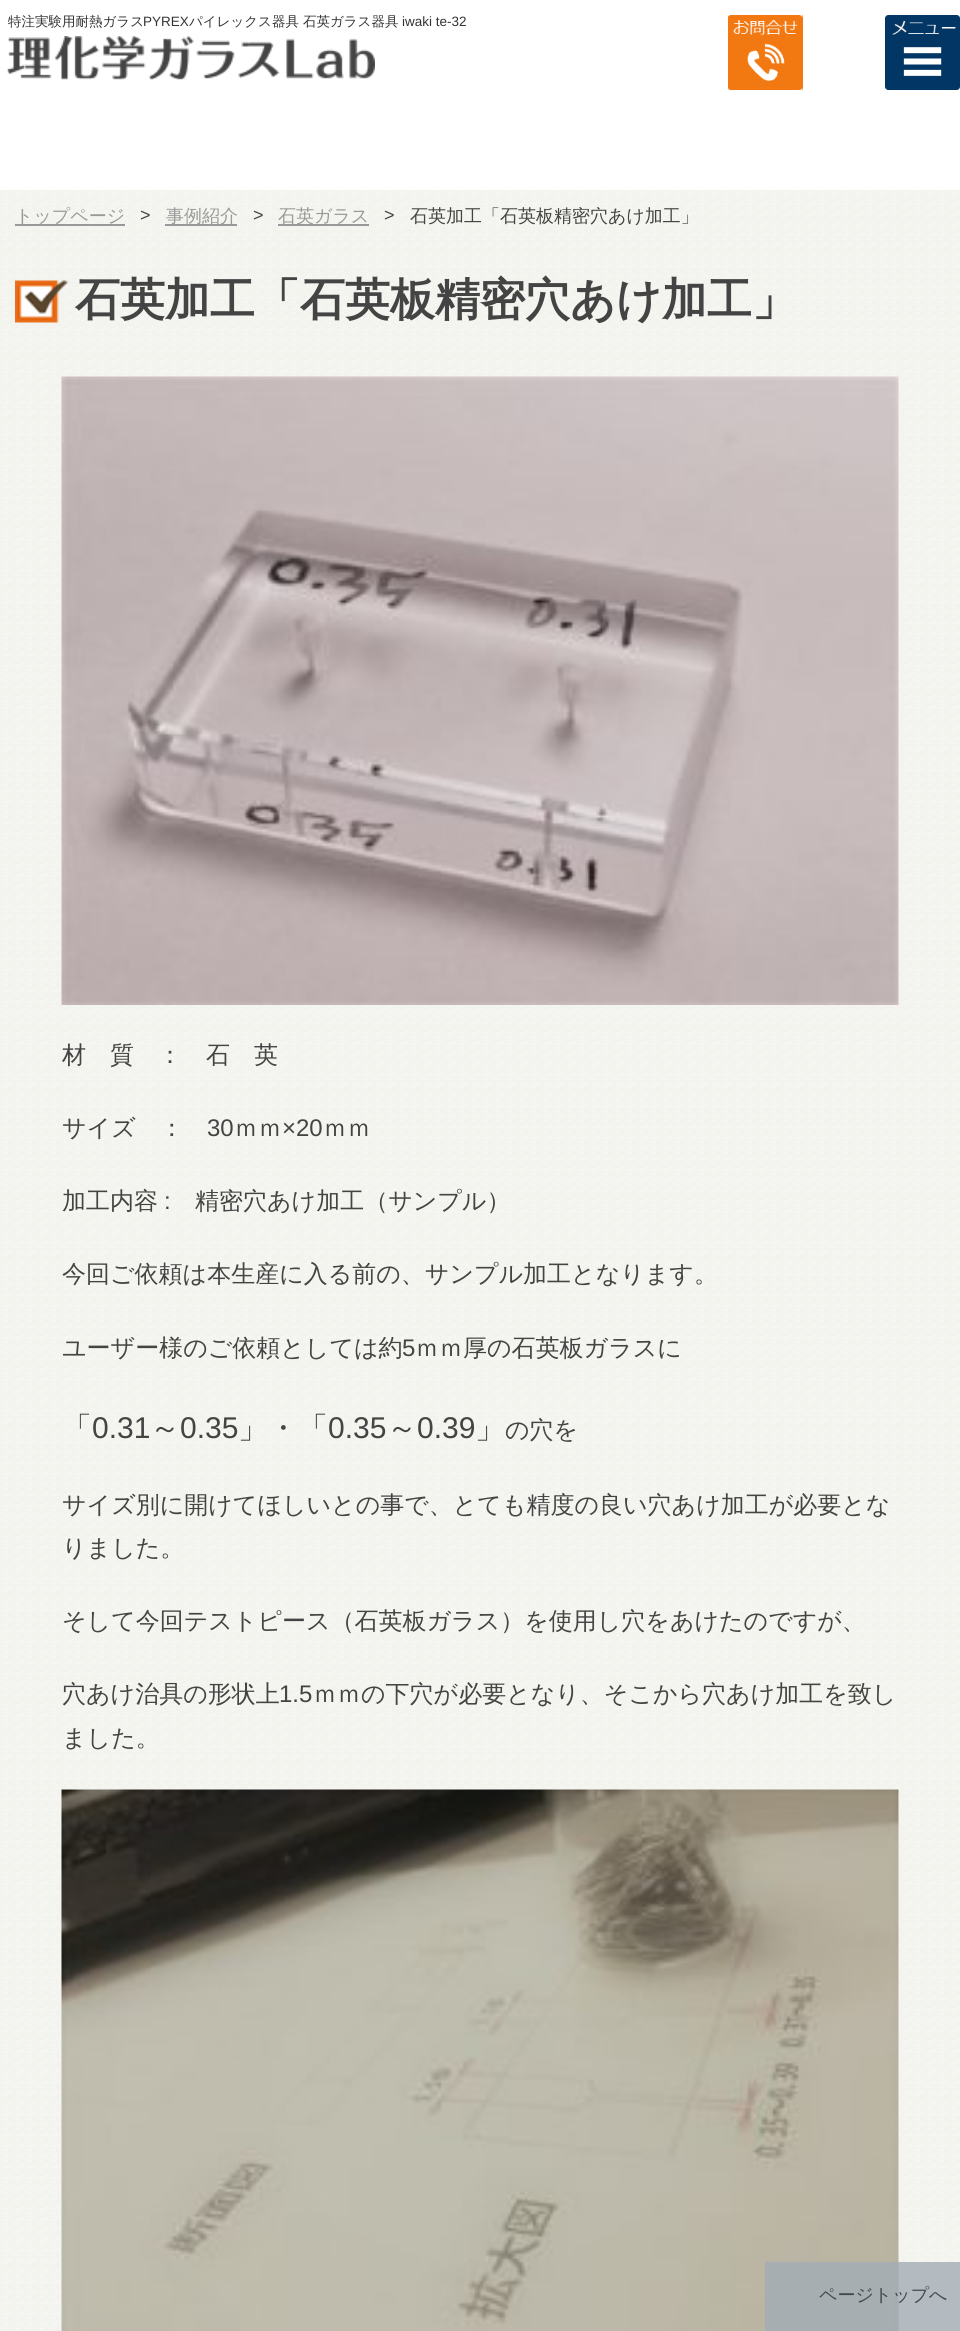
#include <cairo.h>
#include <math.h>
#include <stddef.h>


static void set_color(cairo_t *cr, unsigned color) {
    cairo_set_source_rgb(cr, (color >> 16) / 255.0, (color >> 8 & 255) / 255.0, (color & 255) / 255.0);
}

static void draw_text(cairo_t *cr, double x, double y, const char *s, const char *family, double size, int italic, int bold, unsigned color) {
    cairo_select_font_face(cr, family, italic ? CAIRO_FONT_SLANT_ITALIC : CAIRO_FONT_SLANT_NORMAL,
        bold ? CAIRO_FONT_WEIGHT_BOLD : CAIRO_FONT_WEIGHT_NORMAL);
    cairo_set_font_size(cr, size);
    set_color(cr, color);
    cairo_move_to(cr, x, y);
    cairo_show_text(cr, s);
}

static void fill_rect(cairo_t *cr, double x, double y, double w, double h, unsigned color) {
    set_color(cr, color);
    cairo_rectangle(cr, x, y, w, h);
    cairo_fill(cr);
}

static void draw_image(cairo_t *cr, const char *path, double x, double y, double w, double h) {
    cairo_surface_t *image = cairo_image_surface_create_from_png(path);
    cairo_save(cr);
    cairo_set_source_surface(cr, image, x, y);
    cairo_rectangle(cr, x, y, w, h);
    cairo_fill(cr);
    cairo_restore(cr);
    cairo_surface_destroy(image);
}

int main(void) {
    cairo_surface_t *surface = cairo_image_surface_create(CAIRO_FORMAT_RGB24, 960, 2331);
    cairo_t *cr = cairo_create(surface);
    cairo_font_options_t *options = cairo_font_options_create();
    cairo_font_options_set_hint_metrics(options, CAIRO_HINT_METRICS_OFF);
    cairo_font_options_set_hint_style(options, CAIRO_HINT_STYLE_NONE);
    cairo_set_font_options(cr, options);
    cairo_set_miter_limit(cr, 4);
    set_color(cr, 0xFFFFFF);
    cairo_paint(cr);
    draw_image(cr, "assets/img1.png", 0, 190, 960, 2141);
    draw_text(cr, 8, 26, "特注実験用耐熱ガラス", "WenQuanYi Zen Hei Medium", 13.5, 0, 0, 0x333333);
    draw_text(cr, 143, 26, "PYREX", "Liberation Sans", 13.5, 0, 0, 0x333333);
    draw_text(cr, 189, 26, "パイレックス器具 石英ガラス器具", "WenQuanYi Zen Hei Medium", 13.5, 0, 0, 0x333333);
    draw_text(cr, 402, 26, "iwaki te-32", "Liberation Sans", 13.5, 0, 0, 0x333333);
    draw_image(cr, "assets/img2.png", 7, 36, 368, 44);
    fill_rect(cr, 728, 15, 75, 75, 0xF27811);
    draw_image(cr, "assets/img3.png", 727, 15, 76, 75);
    draw_image(cr, "assets/img4.png", 885, 15, 75, 75);
    fill_rect(cr, 15, 224, 110, 2, 0x999999);
    draw_text(cr, 15, 222, "トップページ", "WenQuanYi Zen Hei Medium", 18, 0, 0, 0x999999);
    draw_text(cr, 140, 221, ">", "Liberation Sans", 18, 0, 0, 0x444444);
    fill_rect(cr, 165, 224, 72, 2, 0x999999);
    draw_text(cr, 166, 222, "事例紹介", "WenQuanYi Zen Hei Medium", 18, 0, 0, 0x999999);
    draw_text(cr, 253, 221, ">", "Liberation Sans", 18, 0, 0, 0x444444);
    fill_rect(cr, 278, 224, 91, 2, 0x999999);
    draw_text(cr, 278, 222, "石英ガラス", "WenQuanYi Zen Hei Medium", 18, 0, 0, 0x999999);
    draw_text(cr, 384, 221, ">", "Liberation Sans", 18, 0, 0, 0x444444);
    draw_text(cr, 410, 222, "石英加工「石英板精密穴あけ加工」", "WenQuanYi Zen Hei Medium", 18, 0, 0, 0x444444);
    draw_image(cr, "assets/img5.png", 15, 280, 53, 43);
    draw_text(cr, 75, 315, "石英加工「石英板精密穴あけ加工」", "WenQuanYi Zen Hei", 45, 0, 1, 0x444444);
    draw_image(cr, "assets/img6.png", 61, 376, 838, 629);
    draw_text(cr, 62, 1063, "材　質　：　石　英", "WenQuanYi Zen Hei Medium", 24, 0, 0, 0x444444);
    draw_text(cr, 62, 1136, "サイズ　：", "WenQuanYi Zen Hei Medium", 24, 0, 0, 0x444444);
    draw_text(cr, 207, 1136, "30", "Liberation Sans", 24, 0, 0, 0x444444);
    draw_text(cr, 234, 1136, "ｍｍ", "WenQuanYi Zen Hei Medium", 24, 0, 0, 0x444444);
    draw_text(cr, 282, 1136, "×20", "Liberation Sans", 24, 0, 0, 0x444444);
    draw_text(cr, 323, 1136, "ｍｍ", "WenQuanYi Zen Hei Medium", 24, 0, 0, 0x444444);
    draw_text(cr, 62, 1209, "加工内容", "WenQuanYi Zen Hei Medium", 24, 0, 0, 0x444444);
    draw_text(cr, 164, 1209, ":", "Liberation Sans", 24, 0, 0, 0x444444);
    draw_text(cr, 195, 1209, "精密穴あけ加工（サンプル）", "WenQuanYi Zen Hei Medium", 24, 0, 0, 0x444444);
    draw_text(cr, 62, 1282, "今回ご依頼は本生産に入る前の、サンプル加工となります。", "WenQuanYi Zen Hei Medium", 24, 0, 0, 0x444444);
    draw_text(cr, 62, 1356, "ユーザー様のご依頼としては約", "WenQuanYi Zen Hei Medium", 24, 0, 0, 0x444444);
    draw_text(cr, 402, 1356, "5", "Liberation Sans", 24, 0, 0, 0x444444);
    draw_text(cr, 415, 1356, "ｍｍ厚の石英板ガラスに", "WenQuanYi Zen Hei Medium", 24, 0, 0, 0x444444);
    draw_text(cr, 62, 1438, "「", "WenQuanYi Zen Hei Medium", 30, 0, 0, 0x444444);
    draw_text(cr, 92, 1438, "0.31", "Liberation Sans", 30, 0, 0, 0x444444);
    draw_text(cr, 150, 1438, "～", "WenQuanYi Zen Hei Medium", 30, 0, 0, 0x444444);
    draw_text(cr, 180, 1438, "0.35", "Liberation Sans", 30, 0, 0, 0x444444);
    draw_text(cr, 238, 1438, "」・「", "WenQuanYi Zen Hei Medium", 30, 0, 0, 0x444444);
    draw_text(cr, 328, 1438, "0.35", "Liberation Sans", 30, 0, 0, 0x444444);
    draw_text(cr, 387, 1438, "～", "WenQuanYi Zen Hei Medium", 30, 0, 0, 0x444444);
    draw_text(cr, 417, 1438, "0.39", "Liberation Sans", 30, 0, 0, 0x444444);
    draw_text(cr, 475, 1438, "」", "WenQuanYi Zen Hei Medium", 30, 0, 0, 0x444444);
    draw_text(cr, 505, 1438, "の穴を", "WenQuanYi Zen Hei Medium", 24, 0, 0, 0x444444);
    draw_text(cr, 62, 1513, "サイズ別に開けてほしいとの事で、とても精度の良い穴あけ加工が必要とな", "WenQuanYi Zen Hei Medium", 24, 0, 0, 0x444444);
    draw_text(cr, 62, 1556, "りました。", "WenQuanYi Zen Hei Medium", 24, 0, 0, 0x444444);
    draw_text(cr, 62, 1629, "そして今回テストピース（石英板ガラス）を使用し穴をあけたのですが、", "WenQuanYi Zen Hei Medium", 24, 0, 0, 0x444444);
    draw_text(cr, 62, 1702, "穴あけ治具の形状上", "WenQuanYi Zen Hei Medium", 24, 0, 0, 0x444444);
    draw_text(cr, 279, 1702, "1.5", "Liberation Sans", 24, 0, 0, 0x444444);
    draw_text(cr, 313, 1702, "ｍｍの下穴が必要となり、そこから穴あけ加工を致し", "WenQuanYi Zen Hei Medium", 24, 0, 0, 0x444444);
    draw_text(cr, 62, 1746, "ました。", "WenQuanYi Zen Hei Medium", 24, 0, 0, 0x444444);
    draw_image(cr, "assets/img7.png", 61, 1789, 838, 542);
    cairo_set_source_rgba(cr, 0.635, 0.675, 0.71, 0.8);
    cairo_rectangle(cr, 765, 2262, 195, 69);
    cairo_fill(cr);
    draw_text(cr, 819, 2301, "ページトップへ", "WenQuanYi Zen Hei Medium", 18, 0, 0, 0x41494F);
    cairo_surface_write_to_png(surface, "output.png");
    cairo_font_options_destroy(options);
    cairo_destroy(cr);
    cairo_surface_destroy(surface);
    return 0;
}
